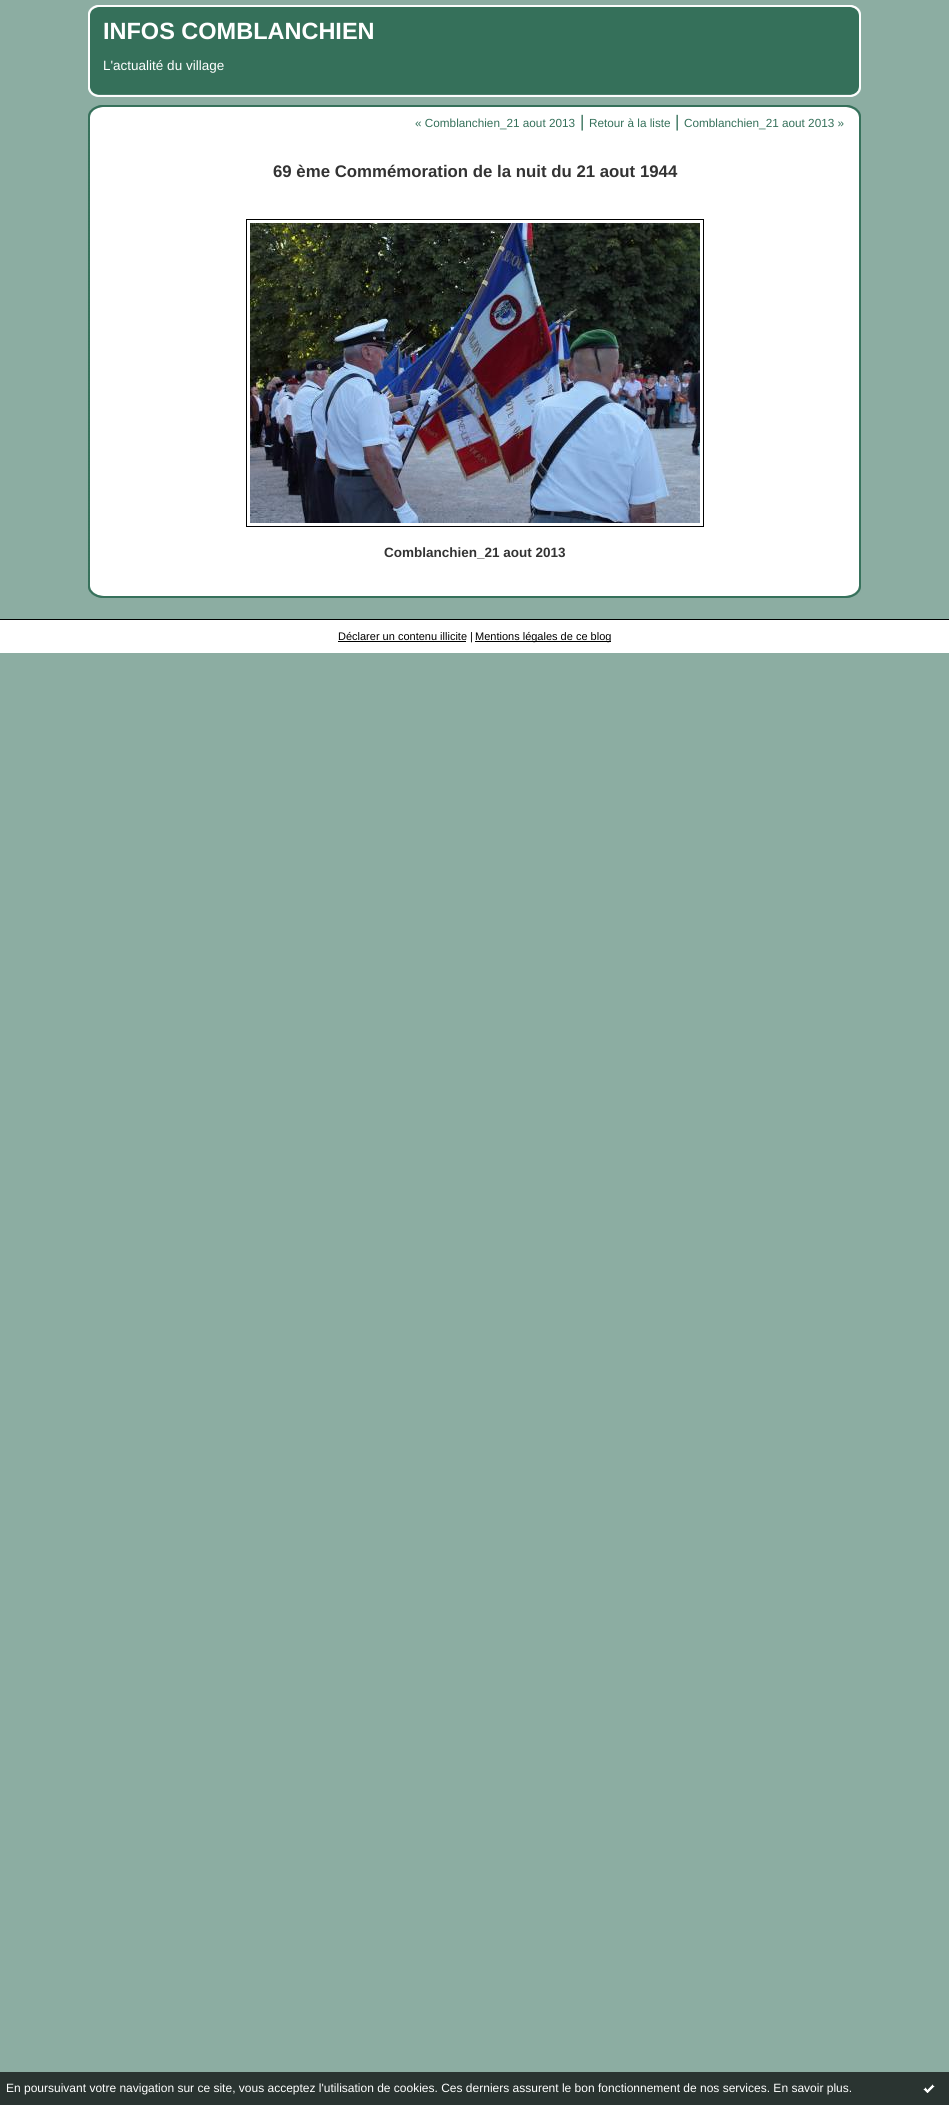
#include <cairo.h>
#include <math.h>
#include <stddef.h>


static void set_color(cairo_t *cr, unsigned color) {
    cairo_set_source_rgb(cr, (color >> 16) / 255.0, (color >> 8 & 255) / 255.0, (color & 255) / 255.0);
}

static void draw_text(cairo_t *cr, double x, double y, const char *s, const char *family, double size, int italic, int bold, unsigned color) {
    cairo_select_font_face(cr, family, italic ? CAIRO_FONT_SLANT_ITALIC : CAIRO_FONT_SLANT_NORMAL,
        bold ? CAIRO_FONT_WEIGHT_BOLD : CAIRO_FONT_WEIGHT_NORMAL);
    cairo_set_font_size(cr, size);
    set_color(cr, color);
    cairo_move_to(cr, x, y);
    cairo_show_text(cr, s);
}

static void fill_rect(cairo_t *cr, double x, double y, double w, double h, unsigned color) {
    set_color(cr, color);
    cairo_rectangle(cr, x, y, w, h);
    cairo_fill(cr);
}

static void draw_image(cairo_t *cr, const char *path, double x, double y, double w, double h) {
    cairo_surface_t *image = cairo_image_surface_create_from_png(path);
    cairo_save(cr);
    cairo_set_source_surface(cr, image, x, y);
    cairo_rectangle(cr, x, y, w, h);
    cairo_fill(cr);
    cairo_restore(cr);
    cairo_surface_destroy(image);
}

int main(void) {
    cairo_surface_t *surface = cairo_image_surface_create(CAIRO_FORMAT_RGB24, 949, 2105);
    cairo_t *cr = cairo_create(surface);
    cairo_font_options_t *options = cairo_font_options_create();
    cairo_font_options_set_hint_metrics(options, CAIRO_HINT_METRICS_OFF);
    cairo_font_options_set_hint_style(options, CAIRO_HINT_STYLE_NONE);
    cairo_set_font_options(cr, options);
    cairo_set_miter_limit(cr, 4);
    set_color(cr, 0x8CADA2);
    cairo_paint(cr);
    draw_image(cr, "assets/img1.png", 88, 117, 773, 469);
    draw_image(cr, "assets/img2.png", 88, 105, 773, 12);
    draw_image(cr, "assets/img3.png", 88, 586, 773, 12);
    draw_image(cr, "assets/img4.png", 88, 5, 773, 100);
    draw_text(cr, 103, 39, "INFOS COMBLANCHIEN", "Liberation Sans", 23.5, 0, 1, 0xFFFFFF);
    draw_text(cr, 103, 70, "L'actualité du village", "Liberation Sans", 13.5, 0, 0, 0xFFFFFF);
    draw_text(cr, 415, 127, "« Comblanchien_21 aout 2013", "Liberation Sans", 11.75, 0, 0, 0x35705A);
    draw_text(cr, 580, 127, "|", "Liberation Sans", 16.8, 0, 0, 0x35705A);
    draw_text(cr, 589, 127, "Retour à la liste", "Liberation Sans", 11.75, 0, 0, 0x35705A);
    draw_text(cr, 675, 127, "|", "Liberation Sans", 16.8, 0, 0, 0x35705A);
    draw_text(cr, 684, 127, "Comblanchien_21 aout 2013 »", "Liberation Sans", 11.75, 0, 0, 0x35705A);
    draw_text(cr, 273, 177, "69 ème Commémoration de la nuit du 21 aout 1944", "Liberation Sans", 16.8, 0, 1, 0x333333);
    cairo_rectangle(cr, 246.5, 219.5, 457, 307);
    set_color(cr, 0x000000);
    cairo_set_line_width(cr, 1);
    cairo_stroke(cr);
    draw_image(cr, "assets/img5.png", 250, 223, 450, 300);
    draw_text(cr, 384, 557, "Comblanchien_21 aout 2013", "Liberation Sans", 13.5, 0, 1, 0x333333);
    fill_rect(cr, 0, 620, 949, 33, 0xFFFFFF);
    fill_rect(cr, 0, 619, 949, 1, 0x000000);
    fill_rect(cr, 338, 641, 128, 1, 0x000000);
    draw_text(cr, 338, 640, "Déclarer un contenu illicite |", "Liberation Sans", 11, 0, 0, 0x000000);
    fill_rect(cr, 475, 641, 136, 1, 0x000000);
    draw_text(cr, 475, 640, "Mentions légales de ce blog", "Liberation Sans", 11, 0, 0, 0x000000);
    fill_rect(cr, 0, 2072, 949, 33, 0x2A3431);
    draw_text(cr, 6, 2092, "En poursuivant votre navigation sur ce site, vous acceptez l'utilisation de cookies. Ces derniers assurent le bon fonctionnement de nos services. En savoir plus.", "Liberation Sans", 12, 0, 0, 0xFFFFFF);
    draw_image(cr, "assets/img6.png", 923, 2084, 12, 9);
    cairo_surface_write_to_png(surface, "output.png");
    cairo_font_options_destroy(options);
    cairo_destroy(cr);
    cairo_surface_destroy(surface);
    return 0;
}
